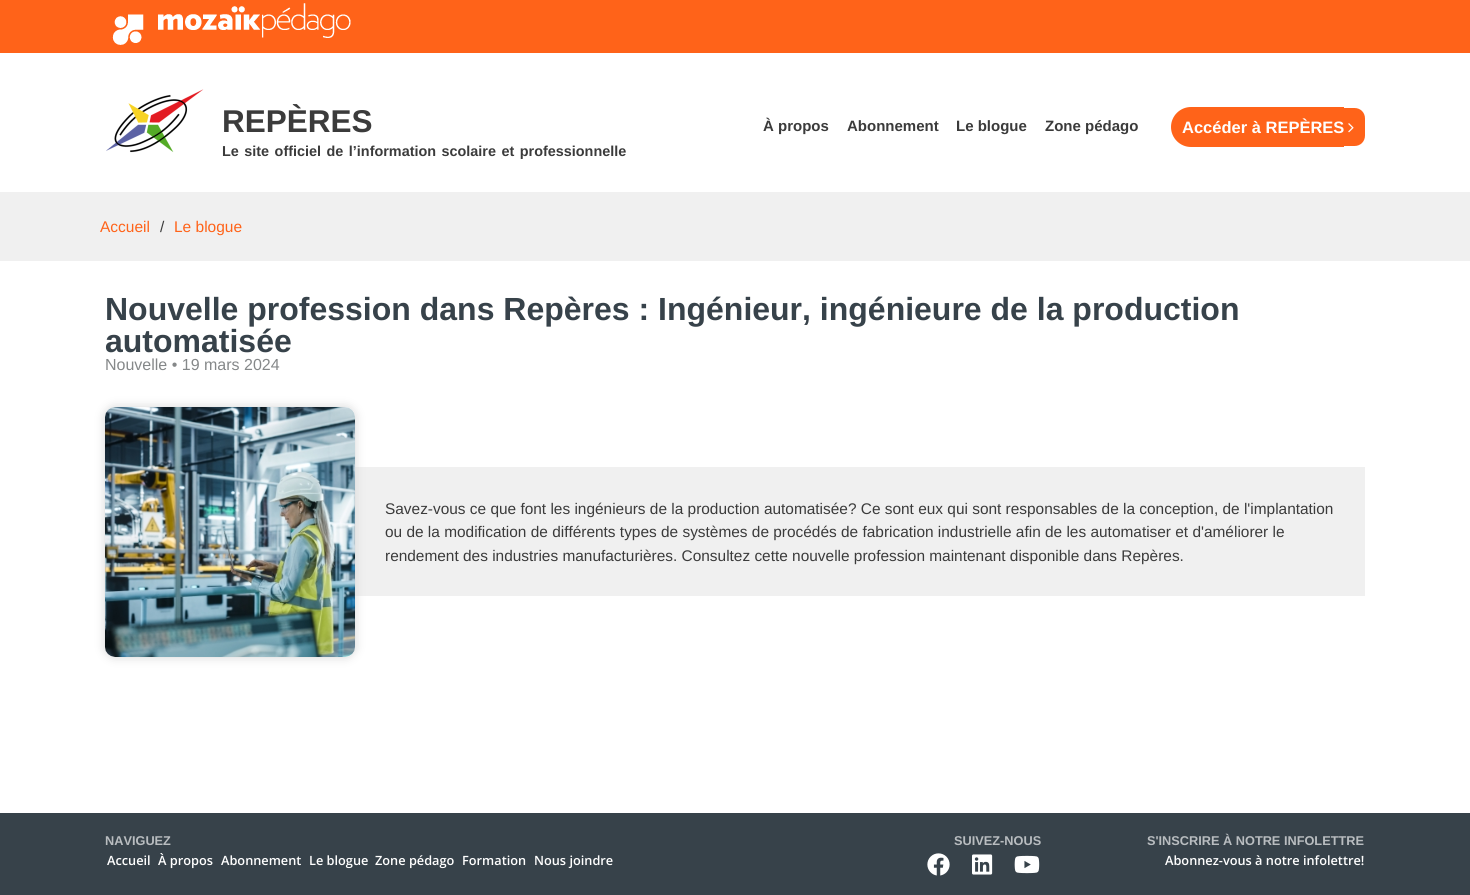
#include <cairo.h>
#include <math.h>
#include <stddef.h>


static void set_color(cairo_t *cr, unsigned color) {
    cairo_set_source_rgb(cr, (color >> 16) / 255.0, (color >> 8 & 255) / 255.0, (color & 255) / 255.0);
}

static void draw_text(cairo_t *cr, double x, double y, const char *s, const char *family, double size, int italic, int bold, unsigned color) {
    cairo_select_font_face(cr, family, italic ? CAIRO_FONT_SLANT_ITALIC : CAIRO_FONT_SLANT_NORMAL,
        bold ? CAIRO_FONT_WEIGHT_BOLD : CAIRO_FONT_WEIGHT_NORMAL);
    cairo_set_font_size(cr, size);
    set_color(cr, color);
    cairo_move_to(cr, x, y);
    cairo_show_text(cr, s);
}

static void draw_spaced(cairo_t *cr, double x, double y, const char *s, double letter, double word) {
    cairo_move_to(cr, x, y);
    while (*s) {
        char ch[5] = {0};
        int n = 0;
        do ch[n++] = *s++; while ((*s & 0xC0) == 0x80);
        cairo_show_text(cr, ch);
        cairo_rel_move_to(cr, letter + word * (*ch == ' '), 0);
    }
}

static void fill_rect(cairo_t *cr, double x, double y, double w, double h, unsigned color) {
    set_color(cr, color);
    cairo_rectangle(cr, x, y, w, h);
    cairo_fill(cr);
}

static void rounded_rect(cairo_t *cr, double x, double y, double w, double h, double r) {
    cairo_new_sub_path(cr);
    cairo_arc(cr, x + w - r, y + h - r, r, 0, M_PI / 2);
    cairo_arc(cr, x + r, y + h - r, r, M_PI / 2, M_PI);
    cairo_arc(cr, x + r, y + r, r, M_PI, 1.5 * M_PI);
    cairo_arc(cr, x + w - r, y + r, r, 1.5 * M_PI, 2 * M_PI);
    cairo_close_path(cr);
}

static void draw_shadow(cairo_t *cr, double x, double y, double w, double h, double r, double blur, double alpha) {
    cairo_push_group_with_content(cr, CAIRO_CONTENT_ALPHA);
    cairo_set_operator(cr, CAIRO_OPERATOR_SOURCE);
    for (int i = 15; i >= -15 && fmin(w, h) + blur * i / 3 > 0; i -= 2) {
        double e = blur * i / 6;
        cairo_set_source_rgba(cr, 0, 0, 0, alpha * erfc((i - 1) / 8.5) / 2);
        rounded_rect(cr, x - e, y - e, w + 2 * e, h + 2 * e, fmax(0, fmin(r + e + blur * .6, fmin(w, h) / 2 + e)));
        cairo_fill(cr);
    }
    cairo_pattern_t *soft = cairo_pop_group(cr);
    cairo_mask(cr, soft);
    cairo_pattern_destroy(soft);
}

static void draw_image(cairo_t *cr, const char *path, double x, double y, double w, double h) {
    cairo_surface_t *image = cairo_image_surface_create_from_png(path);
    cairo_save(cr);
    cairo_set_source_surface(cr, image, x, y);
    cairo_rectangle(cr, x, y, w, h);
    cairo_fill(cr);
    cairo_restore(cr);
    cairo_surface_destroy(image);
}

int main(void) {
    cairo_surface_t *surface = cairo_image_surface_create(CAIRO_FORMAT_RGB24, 1470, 895);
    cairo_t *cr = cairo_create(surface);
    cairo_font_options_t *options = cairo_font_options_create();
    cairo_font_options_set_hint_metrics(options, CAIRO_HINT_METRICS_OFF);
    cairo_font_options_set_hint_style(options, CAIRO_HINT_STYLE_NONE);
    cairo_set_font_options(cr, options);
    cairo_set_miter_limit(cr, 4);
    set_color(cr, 0xFFFFFF);
    cairo_paint(cr);
    fill_rect(cr, 0, 0, 1470, 53, 0xFF6319);
    draw_image(cr, "assets/img1.png", 112, 3, 239, 42);
    draw_image(cr, "assets/img2.png", 106, 89, 98, 64);
    draw_text(cr, 222, 132, "REPÈRES", "Liberation Sans", 31.5, 0, 1, 0x3B3B3B);
    cairo_set_font_size(cr, 14.4);
    draw_spaced(cr, 222, 156, "Le site officiel de l’information scolaire et professionnelle", 0, 1.5);
    draw_text(cr, 763, 131, "À propos", "Liberation Sans", 15, 0, 1, 0x3B3B3B);
    draw_text(cr, 847, 131, "Abonnement", "Liberation Sans", 15, 0, 1, 0x3B3B3B);
    draw_text(cr, 956, 131, "Le blogue", "Liberation Sans", 15, 0, 1, 0x3B3B3B);
    draw_text(cr, 1045, 131, "Zone pédago", "Liberation Sans", 15, 0, 1, 0x3B3B3B);
    set_color(cr, 0xFF6319);
    cairo_new_path(cr);
    cairo_move_to(cr, 1191, 107);
    cairo_line_to(cr, 1344, 107);
    cairo_line_to(cr, 1344, 147);
    cairo_line_to(cr, 1191, 147);
    cairo_curve_to(cr, 1180, 147, 1171, 138, 1171, 127);
    cairo_curve_to(cr, 1171, 116, 1180, 107, 1191, 107);
    cairo_close_path(cr);
    cairo_fill(cr);
    draw_text(cr, 1182, 133, "Accéder à REPÈRES", "Liberation Sans", 16.5, 0, 1, 0xFEFEFE);
    set_color(cr, 0xFF6319);
    cairo_new_path(cr);
    cairo_move_to(cr, 1344, 108);
    cairo_line_to(cr, 1354.5, 108);
    cairo_curve_to(cr, 1360.5, 108, 1365, 112.5, 1365, 118.5);
    cairo_line_to(cr, 1365, 135.5);
    cairo_curve_to(cr, 1365, 141.5, 1360.5, 146, 1354.5, 146);
    cairo_line_to(cr, 1344, 146);
    cairo_close_path(cr);
    cairo_fill(cr);
    draw_image(cr, "assets/img3.png", 1348, 123, 6, 10);
    fill_rect(cr, 0, 192, 1470, 69, 0xF0F0F0);
    draw_text(cr, 100, 232, "Accueil", "Liberation Sans", 15.5, 0, 0, 0xFF6319);
    draw_text(cr, 160, 232, "/", "Liberation Sans", 15.5, 0, 0, 0x3B3B3B);
    draw_text(cr, 174, 232, "Le blogue", "Liberation Sans", 15.5, 0, 0, 0xFF6319);
    draw_text(cr, 105, 320, "Nouvelle profession dans Repères : Ingénieur, ingénieure de la production", "Liberation Sans", 32, 0, 1, 0x37424A);
    draw_text(cr, 105, 352, "automatisée", "Liberation Sans", 32, 0, 1, 0x37424A);
    draw_text(cr, 105, 370, "Nouvelle • 19 mars 2024", "Liberation Sans", 16, 0, 0, 0x858889);
    fill_rect(cr, 355, 467, 1010, 129, 0xF0F0F0);
    set_color(cr, 0xD5D5D5);
    draw_shadow(cr, 105, 407, 250, 250, 10, 5, 1);
    set_color(cr, 0xFEFEFE);
    rounded_rect(cr, 105, 407, 250, 250, 10);
    cairo_fill(cr);
    draw_image(cr, "assets/img4.png", 105, 407, 250, 250);
    draw_text(cr, 385, 514, "Savez-vous ce que font les ingénieurs de la production automatisée? Ce sont eux qui sont responsables de la conception, de l'implantation", "Liberation Sans", 15.42, 0, 0, 0x3B3B3B);
    draw_text(cr, 385, 537, "ou de la modification de différents types de systèmes de procédés de fabrication industrielle afin de les automatiser et d'améliorer le", "Liberation Sans", 15.42, 0, 0, 0x3B3B3B);
    draw_text(cr, 385, 561, "rendement des industries manufacturières. Consultez cette nouvelle profession maintenant disponible dans Repères.", "Liberation Sans", 15.42, 0, 0, 0x3B3B3B);
    fill_rect(cr, 0, 813, 1470, 82, 0x37424A);
    draw_text(cr, 105, 845, "NAVIGUEZ", "Liberation Sans", 12.75, 0, 1, 0xB9BDC0);
    draw_text(cr, 107, 865, "Accueil", "Open Sans SemiBold", 12.75, 0, 0, 0xFEFEFE);
    draw_text(cr, 158, 865, "À propos", "Open Sans SemiBold", 12.75, 0, 0, 0xFEFEFE);
    draw_text(cr, 221, 865, "Abonnement", "Open Sans SemiBold", 12.75, 0, 0, 0xFEFEFE);
    draw_text(cr, 309, 865, "Le blogue", "Open Sans SemiBold", 12.75, 0, 0, 0xFEFEFE);
    draw_text(cr, 375, 865, "Zone pédago", "Open Sans SemiBold", 12.75, 0, 0, 0xFEFEFE);
    draw_text(cr, 462, 865, "Formation", "Open Sans SemiBold", 12.75, 0, 0, 0xFEFEFE);
    draw_text(cr, 534, 865, "Nous joindre", "Open Sans SemiBold", 12.75, 0, 0, 0xFEFEFE);
    draw_text(cr, 954, 845, "SUIVEZ-NOUS", "Liberation Sans", 12.75, 0, 1, 0xB9BDC0);
    draw_image(cr, "assets/img5.png", 927, 853, 23, 23);
    draw_image(cr, "assets/img6.png", 972, 854, 21, 21);
    draw_image(cr, "assets/img7.png", 1014, 855, 26, 19);
    draw_text(cr, 1147, 845, "S'INSCRIRE À NOTRE INFOLETTRE", "Liberation Sans", 12.75, 0, 1, 0xB9BDC0);
    draw_text(cr, 1165, 865, "Abonnez-vous à notre infolettre!", "Open Sans SemiBold", 12.75, 0, 0, 0xFEFEFE);
    cairo_surface_write_to_png(surface, "output.png");
    cairo_font_options_destroy(options);
    cairo_destroy(cr);
    cairo_surface_destroy(surface);
    return 0;
}
